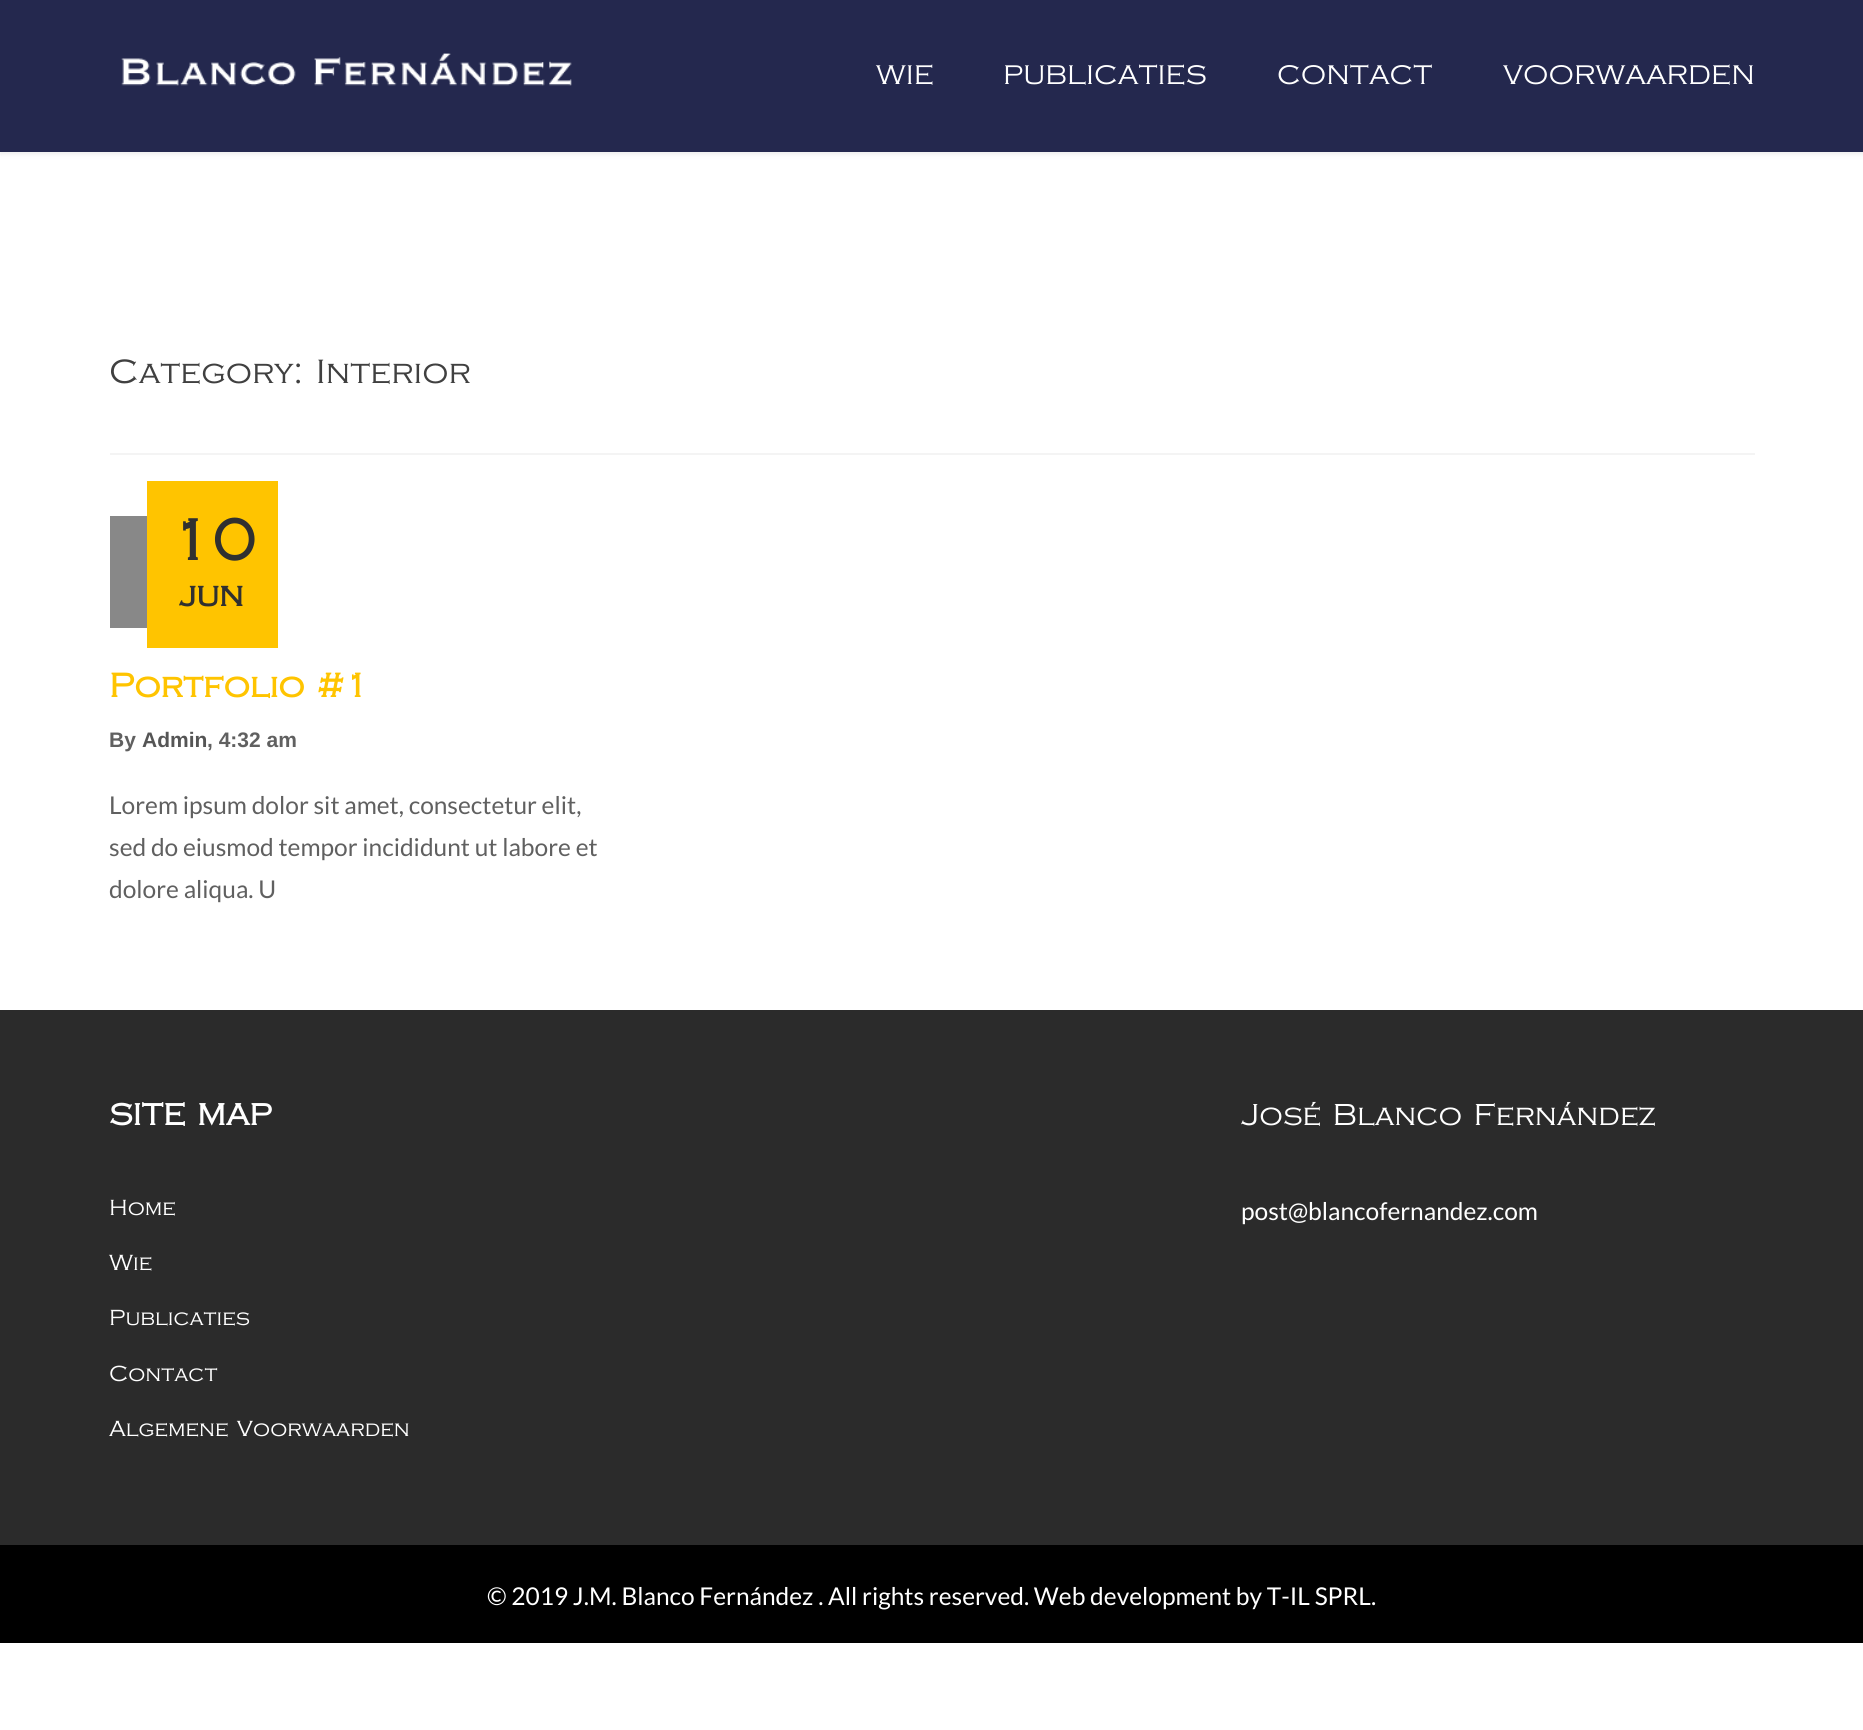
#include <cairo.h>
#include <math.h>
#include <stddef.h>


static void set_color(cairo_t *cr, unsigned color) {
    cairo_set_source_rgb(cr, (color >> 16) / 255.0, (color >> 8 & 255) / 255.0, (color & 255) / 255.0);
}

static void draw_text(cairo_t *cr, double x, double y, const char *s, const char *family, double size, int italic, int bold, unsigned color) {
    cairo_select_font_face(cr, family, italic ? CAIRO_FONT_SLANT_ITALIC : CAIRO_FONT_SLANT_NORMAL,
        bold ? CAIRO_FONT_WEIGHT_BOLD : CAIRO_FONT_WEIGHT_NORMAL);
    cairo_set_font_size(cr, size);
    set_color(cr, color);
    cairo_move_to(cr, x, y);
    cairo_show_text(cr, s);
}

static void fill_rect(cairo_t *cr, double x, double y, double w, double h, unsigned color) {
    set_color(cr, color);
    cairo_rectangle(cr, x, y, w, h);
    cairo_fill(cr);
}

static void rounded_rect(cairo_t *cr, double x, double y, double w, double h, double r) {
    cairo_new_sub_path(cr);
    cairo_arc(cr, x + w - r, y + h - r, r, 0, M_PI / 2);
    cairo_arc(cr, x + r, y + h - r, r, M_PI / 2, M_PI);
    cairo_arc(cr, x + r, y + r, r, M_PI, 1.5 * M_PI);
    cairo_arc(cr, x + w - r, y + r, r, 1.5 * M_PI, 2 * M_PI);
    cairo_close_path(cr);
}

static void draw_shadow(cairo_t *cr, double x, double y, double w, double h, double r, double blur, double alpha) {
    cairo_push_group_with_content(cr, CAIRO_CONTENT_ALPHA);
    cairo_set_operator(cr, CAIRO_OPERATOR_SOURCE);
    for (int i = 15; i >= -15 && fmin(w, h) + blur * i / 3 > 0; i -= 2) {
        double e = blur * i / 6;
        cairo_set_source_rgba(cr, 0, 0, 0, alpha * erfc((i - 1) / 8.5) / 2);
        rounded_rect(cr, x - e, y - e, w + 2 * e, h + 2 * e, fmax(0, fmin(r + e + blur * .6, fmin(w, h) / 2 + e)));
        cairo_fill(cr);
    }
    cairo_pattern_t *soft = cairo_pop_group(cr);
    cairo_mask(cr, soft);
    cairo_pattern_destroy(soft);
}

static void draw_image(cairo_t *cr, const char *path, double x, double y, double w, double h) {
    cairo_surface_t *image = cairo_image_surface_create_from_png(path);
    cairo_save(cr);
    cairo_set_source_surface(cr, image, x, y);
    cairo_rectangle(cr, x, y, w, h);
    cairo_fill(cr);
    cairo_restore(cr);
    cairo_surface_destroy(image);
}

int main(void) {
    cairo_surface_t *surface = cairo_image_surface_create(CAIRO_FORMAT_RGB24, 1863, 1730);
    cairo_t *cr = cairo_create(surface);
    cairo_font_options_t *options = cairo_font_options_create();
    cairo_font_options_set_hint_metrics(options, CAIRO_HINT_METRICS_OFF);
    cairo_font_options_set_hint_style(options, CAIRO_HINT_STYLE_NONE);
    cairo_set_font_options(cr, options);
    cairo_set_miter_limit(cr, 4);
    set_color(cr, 0xFFFFFF);
    cairo_paint(cr);
    set_color(cr, 0x323232);
    draw_shadow(cr, 0, 2, 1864, 152, 0, 2.5, 0.1);
    fill_rect(cr, 0, 0, 1863, 152, 0x24284E);
    draw_image(cr, "assets/img1.png", 121, 53, 451, 33);
    draw_text(cr, 876, 84, "WIE", "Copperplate", 28, 0, 0, 0xFFFFFF);
    draw_text(cr, 1003, 84, "PUBLICATIES", "Copperplate", 28, 0, 0, 0xFFFFFF);
    draw_text(cr, 1277, 84, "CONTACT", "Copperplate", 28, 0, 0, 0xFFFFFF);
    draw_text(cr, 1503, 84, "VOORWAARDEN", "Copperplate", 28, 0, 0, 0xFFFFFF);
    fill_rect(cr, 110, 453, 1645, 2, 0xF4F4F4);
    draw_text(cr, 109, 383, "Category: Interior", "Copperplate", 35, 0, 0, 0x404040);
    set_color(cr, 0x888888);
    cairo_new_path(cr);
    cairo_move_to(cr, 166, 516);
    cairo_line_to(cr, 110, 516);
    cairo_line_to(cr, 110, 628);
    cairo_line_to(cr, 194, 628);
    cairo_line_to(cr, 194, 544);
    cairo_close_path(cr);
    cairo_move_to(cr, 166, 544);
    cairo_line_to(cr, 166, 523);
    cairo_line_to(cr, 187, 544);
    cairo_close_path(cr);
    cairo_fill(cr);
    fill_rect(cr, 147, 481, 131, 167, 0xFFC400);
    draw_text(cr, 169, 560, "10", "Copperplate", 60, 0, 1, 0x303030);
    draw_text(cr, 179, 606, "jun", "Copperplate", 35, 0, 1, 0x303030);
    draw_text(cr, 109, 697, "Portfolio #1", "Copperplate", 35, 0, 1, 0xFFC400);
    draw_text(cr, 109, 747, "By", "Liberation Sans", 21, 0, 1, 0x606060);
    draw_text(cr, 142, 747, "Admin", "Liberation Sans", 21, 0, 1, 0x555555);
    draw_text(cr, 207, 747, ", 4:32 am", "Liberation Sans", 21, 0, 1, 0x606060);
    draw_text(cr, 109, 814, "Lorem ipsum dolor sit amet, consectetur elit,", "Lato", 24.5, 0, 0, 0x606060);
    draw_text(cr, 109, 856, "sed do eiusmod tempor incididunt ut labore et", "Lato", 24.5, 0, 0, 0x606060);
    draw_text(cr, 109, 898, "dolore aliqua. U", "Lato", 24.5, 0, 0, 0x606060);
    fill_rect(cr, 0, 1010, 1863, 535, 0x2B2B2B);
    draw_text(cr, 109, 1125, "SITE MAP", "Copperplate", 31.5, 0, 1, 0xFFFFFF);
    draw_text(cr, 109, 1215, "Home", "Copperplate", 22.75, 0, 0, 0xFFFFFF);
    draw_text(cr, 109, 1270, "Wie", "Copperplate", 22.75, 0, 0, 0xFFFFFF);
    draw_text(cr, 109, 1325, "Publicaties", "Copperplate", 22.75, 0, 0, 0xFFFFFF);
    draw_text(cr, 109, 1381, "Contact", "Copperplate", 22.75, 0, 0, 0xFFFFFF);
    draw_text(cr, 109, 1436, "Algemene Voorwaarden", "Copperplate", 22.75, 0, 0, 0xFFFFFF);
    draw_text(cr, 1241, 1125, "José Blanco Fernández", "Copperplate", 31.5, 0, 0, 0xFFFFFF);
    draw_text(cr, 1241, 1220, "post@blancofernandez.com", "Lato", 24.5, 0, 0, 0xFFFFFF);
    fill_rect(cr, 0, 1545, 1863, 98, 0x000000);
    draw_text(cr, 487, 1605, "© 2019 J.M. Blanco Fernández . All rights reserved. Web development by T-IL SPRL.", "Lato", 24.5, 0, 0, 0xFFFFFF);
    cairo_surface_write_to_png(surface, "output.png");
    cairo_font_options_destroy(options);
    cairo_destroy(cr);
    cairo_surface_destroy(surface);
    return 0;
}
